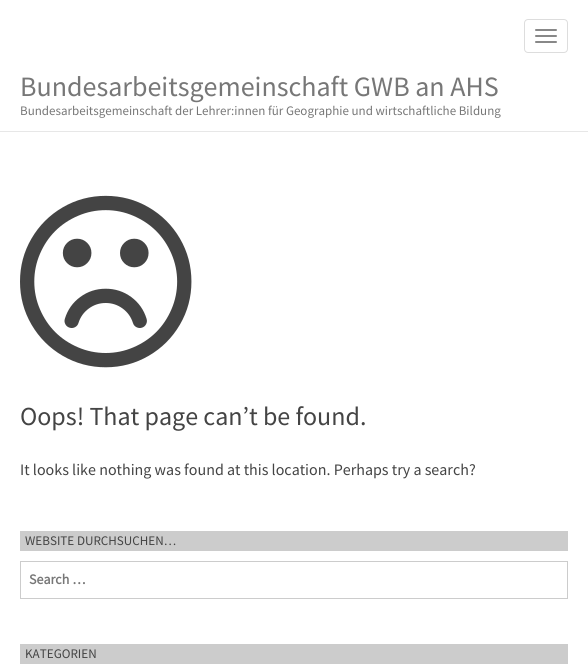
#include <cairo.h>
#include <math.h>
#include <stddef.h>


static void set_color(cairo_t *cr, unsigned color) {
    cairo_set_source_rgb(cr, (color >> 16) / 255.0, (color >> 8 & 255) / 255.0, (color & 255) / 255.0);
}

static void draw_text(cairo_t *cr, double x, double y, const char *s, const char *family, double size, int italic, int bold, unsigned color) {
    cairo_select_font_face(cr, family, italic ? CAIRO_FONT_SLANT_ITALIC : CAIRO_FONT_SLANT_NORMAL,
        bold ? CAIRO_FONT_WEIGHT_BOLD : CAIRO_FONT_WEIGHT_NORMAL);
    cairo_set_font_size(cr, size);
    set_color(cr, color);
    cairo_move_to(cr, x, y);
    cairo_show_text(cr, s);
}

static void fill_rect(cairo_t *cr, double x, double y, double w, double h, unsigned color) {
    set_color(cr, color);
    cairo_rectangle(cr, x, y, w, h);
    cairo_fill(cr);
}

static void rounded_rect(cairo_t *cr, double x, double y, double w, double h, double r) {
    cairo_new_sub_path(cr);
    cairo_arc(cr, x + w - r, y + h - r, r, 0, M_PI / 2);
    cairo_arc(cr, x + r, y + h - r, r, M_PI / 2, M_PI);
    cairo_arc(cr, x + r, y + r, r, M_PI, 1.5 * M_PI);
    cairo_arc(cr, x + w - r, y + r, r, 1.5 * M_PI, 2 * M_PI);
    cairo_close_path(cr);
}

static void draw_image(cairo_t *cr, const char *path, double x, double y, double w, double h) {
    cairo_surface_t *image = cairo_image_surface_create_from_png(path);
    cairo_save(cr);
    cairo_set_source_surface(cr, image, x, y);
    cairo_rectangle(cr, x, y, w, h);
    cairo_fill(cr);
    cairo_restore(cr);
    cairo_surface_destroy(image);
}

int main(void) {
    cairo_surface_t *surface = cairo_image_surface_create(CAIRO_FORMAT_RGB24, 588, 669);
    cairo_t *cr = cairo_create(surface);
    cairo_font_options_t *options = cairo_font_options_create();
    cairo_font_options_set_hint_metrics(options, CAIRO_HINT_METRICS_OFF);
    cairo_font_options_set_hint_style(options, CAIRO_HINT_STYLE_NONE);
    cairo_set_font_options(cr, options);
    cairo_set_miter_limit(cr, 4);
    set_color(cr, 0xFFFFFF);
    cairo_paint(cr);
    fill_rect(cr, 0, 131, 588, 1, 0xE7E7E7);
    rounded_rect(cr, 524.5, 19.5, 43, 33, 3.5);
    set_color(cr, 0xDDDDDD);
    cairo_set_line_width(cr, 1);
    cairo_stroke(cr);
    set_color(cr, 0x888888);
    rounded_rect(cr, 535, 29, 22, 2, 1);
    cairo_fill(cr);
    rounded_rect(cr, 535, 35, 22, 2, 1);
    cairo_fill(cr);
    rounded_rect(cr, 535, 41, 22, 2, 1);
    cairo_fill(cr);
    draw_text(cr, 20, 96, "Bundesarbeitsgemeinschaft GWB an AHS", "Source Sans Pro", 28, 0, 0, 0x777777);
    draw_text(cr, 20, 115, "Bundesarbeitsgemeinschaft der Lehrer:innen für Geographie und wirtschaftliche Bildung", "Source Sans Pro", 13, 0, 0, 0x777777);
    draw_image(cr, "assets/img1.png", 20, 195, 172, 173);
    draw_text(cr, 20, 425, "Oops! That page can’t be found.", "Source Sans Pro", 26, 0, 0, 0x444444);
    draw_text(cr, 20, 475, "It looks like nothing was found at this location. Perhaps try a search?", "Source Sans Pro", 16, 0, 0, 0x444444);
    fill_rect(cr, 20, 531, 548, 20, 0xCCCCCC);
    draw_text(cr, 25, 545, "WEBSITE DURCHSUCHEN…", "Source Sans Pro", 13.1, 0, 0, 0x444444);
    cairo_rectangle(cr, 20.5, 561.5, 547, 37);
    set_color(cr, 0xCCCCCC);
    cairo_stroke(cr);
    draw_text(cr, 29, 584, "Search …", "Source Sans Pro", 14, 0, 1, 0x777777);
    fill_rect(cr, 20, 644, 548, 20, 0xCCCCCC);
    draw_text(cr, 25, 658, "KATEGORIEN", "Source Sans Pro", 13.1, 0, 0, 0x444444);
    cairo_surface_write_to_png(surface, "output.png");
    cairo_font_options_destroy(options);
    cairo_destroy(cr);
    cairo_surface_destroy(surface);
    return 0;
}
